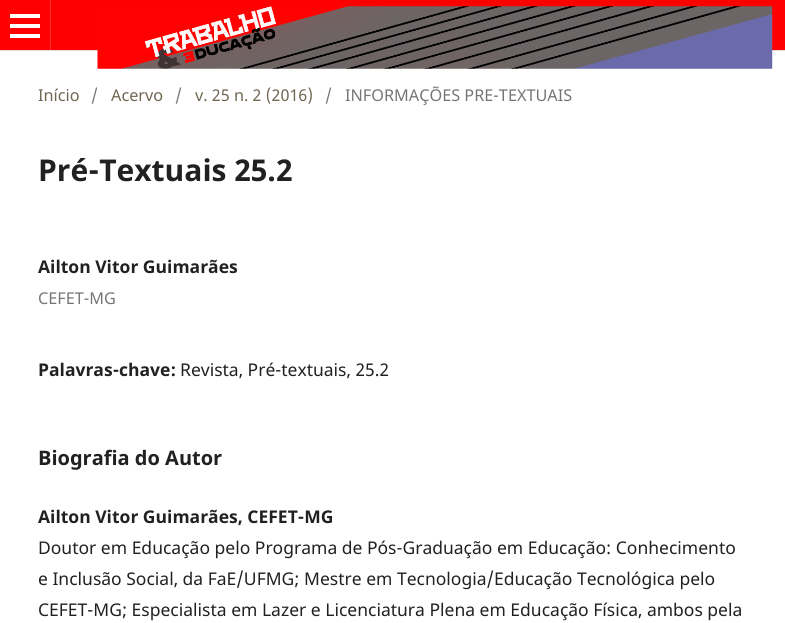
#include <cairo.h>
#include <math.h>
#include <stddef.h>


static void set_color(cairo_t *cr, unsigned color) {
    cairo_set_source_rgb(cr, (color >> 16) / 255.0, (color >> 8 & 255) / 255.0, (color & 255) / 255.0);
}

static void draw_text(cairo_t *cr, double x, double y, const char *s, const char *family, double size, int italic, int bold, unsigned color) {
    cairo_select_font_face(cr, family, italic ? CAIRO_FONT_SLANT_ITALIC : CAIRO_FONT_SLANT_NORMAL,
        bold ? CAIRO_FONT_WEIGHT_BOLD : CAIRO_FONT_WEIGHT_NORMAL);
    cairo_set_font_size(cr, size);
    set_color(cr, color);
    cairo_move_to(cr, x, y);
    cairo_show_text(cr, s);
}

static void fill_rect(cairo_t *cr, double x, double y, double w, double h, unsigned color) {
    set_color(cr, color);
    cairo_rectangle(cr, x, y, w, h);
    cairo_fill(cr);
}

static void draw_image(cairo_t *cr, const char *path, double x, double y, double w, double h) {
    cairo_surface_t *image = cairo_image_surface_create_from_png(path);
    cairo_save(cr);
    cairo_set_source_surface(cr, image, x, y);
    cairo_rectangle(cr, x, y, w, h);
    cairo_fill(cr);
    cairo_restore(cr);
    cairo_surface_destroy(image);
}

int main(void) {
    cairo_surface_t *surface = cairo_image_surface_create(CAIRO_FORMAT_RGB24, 785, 623);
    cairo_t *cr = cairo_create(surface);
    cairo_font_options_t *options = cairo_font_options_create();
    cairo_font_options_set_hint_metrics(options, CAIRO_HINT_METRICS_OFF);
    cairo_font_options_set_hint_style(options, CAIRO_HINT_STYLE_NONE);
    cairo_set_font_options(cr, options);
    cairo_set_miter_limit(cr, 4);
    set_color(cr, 0xFFFFFF);
    cairo_paint(cr);
    fill_rect(cr, 0, 0, 785, 50, 0xFF0000);
    fill_rect(cr, 0, 50, 785, 1, 0xDDDDDD);
    fill_rect(cr, 50, 0, 1, 50, 0xFF3333);
    fill_rect(cr, 10, 34, 30, 4, 0xFFFFFF);
    fill_rect(cr, 10, 14, 30, 4, 0xFFFFFF);
    fill_rect(cr, 10, 24, 30, 4, 0xFFFFFF);
    draw_image(cr, "assets/img1.png", 97, 6, 676, 63);
    draw_text(cr, 38, 101, "Início", "Noto Sans", 16.25, 0, 0, 0x706753);
    draw_text(cr, 91, 101, "/", "Noto Sans", 16.25, 0, 0, 0x757575);
    draw_text(cr, 111, 101, "Acervo", "Noto Sans", 16.25, 0, 0, 0x706753);
    draw_text(cr, 175, 101, "/", "Noto Sans", 16.25, 0, 0, 0x757575);
    draw_text(cr, 195, 101, "v. 25 n. 2 (2016)", "Noto Sans", 16.25, 0, 0, 0x706753);
    draw_text(cr, 325, 101, "/", "Noto Sans", 16.25, 0, 0, 0x757575);
    draw_text(cr, 345, 101, "INFORMAÇÕES PRE-TEXTUAIS", "Noto Sans", 16.25, 0, 0, 0x757575);
    draw_text(cr, 38, 181, "Pré-Textuais 25.2", "Noto Sans", 30, 0, 1, 0x212121);
    draw_text(cr, 38, 273, "Ailton Vitor Guimarães", "Noto Sans", 17.5, 0, 1, 0x212121);
    draw_text(cr, 38, 304, "CEFET-MG", "Noto Sans", 16.25, 0, 0, 0x757575);
    draw_text(cr, 38, 376, "Palavras-chave:", "Noto Sans", 17.5, 0, 1, 0x212121);
    draw_text(cr, 180, 376, "Revista, Pré-textuais, 25.2", "Noto Sans", 17.5, 0, 0, 0x212121);
    draw_text(cr, 38, 465, "Biografia do Autor", "Noto Sans", 20, 0, 1, 0x212121);
    draw_text(cr, 38, 523, "Ailton Vitor Guimarães, CEFET-MG", "Noto Sans", 17.5, 0, 1, 0x212121);
    draw_text(cr, 38, 554, "Doutor em Educação pelo Programa de Pós-Graduação em Educação: Conhecimento", "Noto Sans", 17.5, 0, 0, 0x212121);
    draw_text(cr, 38, 585, "e Inclusão Social, da FaE/UFMG; Mestre em Tecnologia/Educação Tecnológica pelo", "Noto Sans", 17.5, 0, 0, 0x212121);
    draw_text(cr, 38, 616, "CEFET-MG; Especialista em Lazer e Licenciatura Plena em Educação Física, ambos pela", "Noto Sans", 17.5, 0, 0, 0x212121);
    cairo_surface_write_to_png(surface, "output.png");
    cairo_font_options_destroy(options);
    cairo_destroy(cr);
    cairo_surface_destroy(surface);
    return 0;
}
